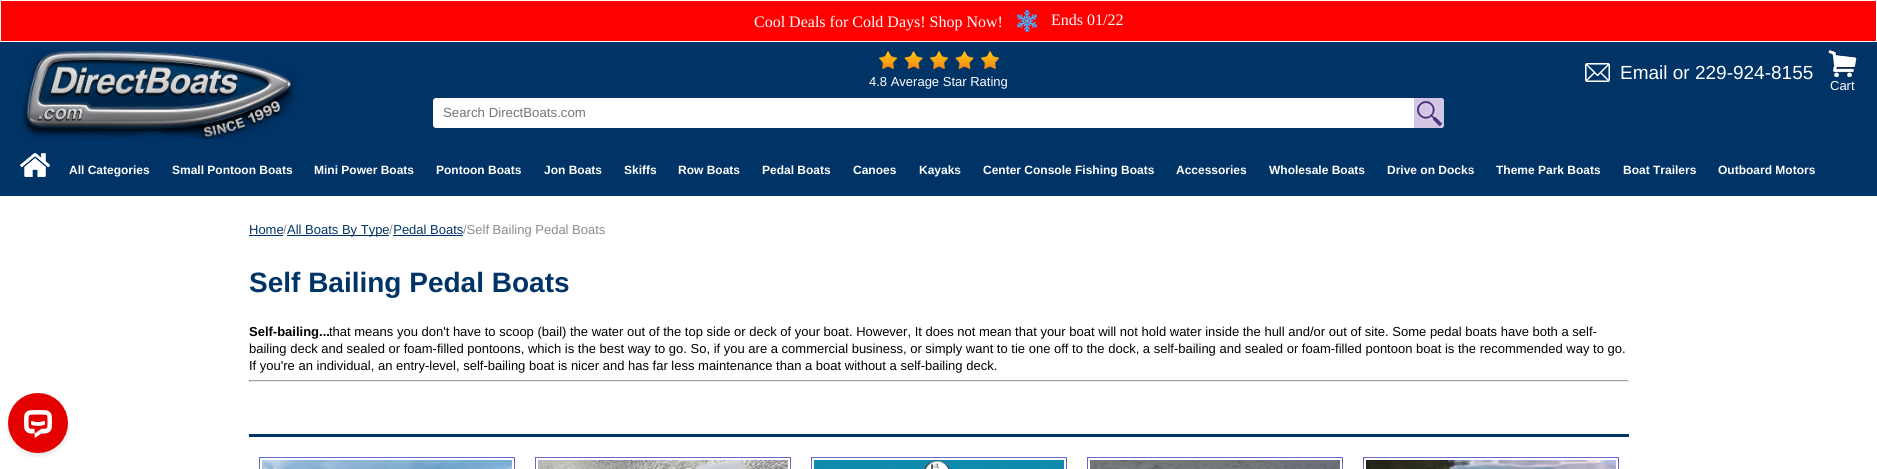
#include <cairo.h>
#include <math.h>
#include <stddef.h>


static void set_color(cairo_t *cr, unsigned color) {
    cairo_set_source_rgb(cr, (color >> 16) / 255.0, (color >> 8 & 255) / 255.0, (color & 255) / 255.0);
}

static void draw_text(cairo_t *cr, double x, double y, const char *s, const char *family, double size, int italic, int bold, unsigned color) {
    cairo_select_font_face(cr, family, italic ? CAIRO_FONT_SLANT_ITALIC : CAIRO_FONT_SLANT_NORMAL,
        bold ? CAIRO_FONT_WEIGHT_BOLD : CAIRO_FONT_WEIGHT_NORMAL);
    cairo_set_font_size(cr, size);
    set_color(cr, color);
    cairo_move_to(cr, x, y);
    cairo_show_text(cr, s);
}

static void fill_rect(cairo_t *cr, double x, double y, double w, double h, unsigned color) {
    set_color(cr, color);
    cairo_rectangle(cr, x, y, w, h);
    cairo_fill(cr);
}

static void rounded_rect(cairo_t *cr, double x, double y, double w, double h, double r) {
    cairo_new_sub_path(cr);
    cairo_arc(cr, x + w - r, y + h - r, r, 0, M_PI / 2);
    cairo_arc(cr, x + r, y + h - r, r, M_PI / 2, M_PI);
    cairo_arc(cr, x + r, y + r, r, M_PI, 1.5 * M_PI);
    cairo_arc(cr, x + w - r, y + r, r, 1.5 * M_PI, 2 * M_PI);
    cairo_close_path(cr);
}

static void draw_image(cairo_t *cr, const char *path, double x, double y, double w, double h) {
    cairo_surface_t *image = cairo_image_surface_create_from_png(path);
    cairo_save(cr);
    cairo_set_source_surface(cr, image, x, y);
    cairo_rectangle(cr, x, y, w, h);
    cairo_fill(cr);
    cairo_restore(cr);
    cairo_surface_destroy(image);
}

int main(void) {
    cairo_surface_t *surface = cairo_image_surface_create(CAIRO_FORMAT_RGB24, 1877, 469);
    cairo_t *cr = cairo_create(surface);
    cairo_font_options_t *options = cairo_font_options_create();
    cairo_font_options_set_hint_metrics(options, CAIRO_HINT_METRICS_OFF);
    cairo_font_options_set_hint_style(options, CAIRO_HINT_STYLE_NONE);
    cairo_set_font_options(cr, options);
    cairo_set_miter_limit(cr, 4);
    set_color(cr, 0x003366);
    cairo_paint(cr);
    set_color(cr, 0xFF0000);
    cairo_rectangle(cr, 0.5, 0.5, 1876, 41);
    cairo_fill_preserve(cr);
    set_color(cr, 0xFFFFFF);
    cairo_set_line_width(cr, 1);
    cairo_stroke(cr);
    draw_text(cr, 754, 27, "Cool Deals for Cold Days! Shop Now!", "Liberation Serif", 16, 0, 0, 0xFFFFFF);
    draw_image(cr, "assets/img1.png", 1017, 9, 20, 24);
    draw_text(cr, 1051, 25, "Ends 01/22", "Liberation Serif", 16, 0, 0, 0xFFFFFF);
    draw_image(cr, "assets/img2.png", 21, 50, 278, 89);
    draw_image(cr, "assets/img3.png", 1585, 63, 25, 19);
    draw_text(cr, 1620, 79, "Email or 229-924-8155", "Liberation Sans", 19, 0, 0, 0xFFFFFF);
    draw_image(cr, "assets/img4.png", 879, 51, 120, 18);
    draw_text(cr, 869, 86, "4.8 Average Star Rating", "Liberation Sans", 13, 0, 0, 0xFFFFFF);
    rounded_rect(cr, 433, 98, 1011, 30, 3);
    cairo_fill(cr);
    draw_text(cr, 443, 117, "Search DirectBoats.com", "Liberation Sans", 13.25, 0, 0, 0x757575);
    draw_image(cr, "assets/img5.png", 1414, 98, 30, 30);
    draw_image(cr, "assets/img6.png", 1828, 50, 29, 27);
    draw_text(cr, 1830, 90, "Cart", "Liberation Sans", 13, 0, 0, 0xFFFFFF);
    draw_image(cr, "assets/img7.png", 20, 153, 30, 24);
    draw_text(cr, 69, 174, "All Categories", "Liberation Sans", 12, 0, 1, 0xFFFFFF);
    draw_text(cr, 172, 174, "Small Pontoon Boats", "Liberation Sans", 12, 0, 1, 0xFFFFFF);
    draw_text(cr, 314, 174, "Mini Power Boats", "Liberation Sans", 12, 0, 1, 0xFFFFFF);
    draw_text(cr, 436, 174, "Pontoon Boats", "Liberation Sans", 12, 0, 1, 0xFFFFFF);
    draw_text(cr, 544, 174, "Jon Boats", "Liberation Sans", 12, 0, 1, 0xFFFFFF);
    draw_text(cr, 624, 174, "Skiffs", "Liberation Sans", 12, 0, 1, 0xFFFFFF);
    draw_text(cr, 678, 174, "Row Boats", "Liberation Sans", 12, 0, 1, 0xFFFFFF);
    draw_text(cr, 762, 174, "Pedal Boats", "Liberation Sans", 12, 0, 1, 0xFFFFFF);
    draw_text(cr, 853, 174, "Canoes", "Liberation Sans", 12, 0, 1, 0xFFFFFF);
    draw_text(cr, 919, 174, "Kayaks", "Liberation Sans", 12, 0, 1, 0xFFFFFF);
    draw_text(cr, 983, 174, "Center Console Fishing Boats", "Liberation Sans", 12, 0, 1, 0xFFFFFF);
    draw_text(cr, 1176, 174, "Accessories", "Liberation Sans", 12, 0, 1, 0xFFFFFF);
    draw_text(cr, 1269, 174, "Wholesale Boats", "Liberation Sans", 12, 0, 1, 0xFFFFFF);
    draw_text(cr, 1387, 174, "Drive on Docks", "Liberation Sans", 12, 0, 1, 0xFFFFFF);
    draw_text(cr, 1496, 174, "Theme Park Boats", "Liberation Sans", 12, 0, 1, 0xFFFFFF);
    draw_text(cr, 1623, 174, "Boat Trailers", "Liberation Sans", 12, 0, 1, 0xFFFFFF);
    draw_text(cr, 1718, 174, "Outboard Motors", "Liberation Sans", 12, 0, 1, 0xFFFFFF);
    fill_rect(cr, 0, 196, 1877, 273, 0xFFFFFF);
    draw_text(cr, 283, 234, "/", "Liberation Sans", 13, 0, 0, 0x8C8C8C);
    fill_rect(cr, 287, 235, 102, 1, 0x003366);
    draw_text(cr, 287, 234, "All Boats By Type Pedal Boats", "Liberation Sans", 13, 0, 0, 0x003366);
    draw_text(cr, 249, 234, "Home", "Liberation Sans", 13, 0, 0, 0x003366);
    fill_rect(cr, 249, 235, 34, 1, 0x003366);
    draw_text(cr, 389, 234, "/", "Liberation Sans", 13, 0, 0, 0x8C8C8C);
    draw_text(cr, 463, 234, "/Self Bailing Pedal Boats", "Liberation Sans", 13, 0, 0, 0x8C8C8C);
    fill_rect(cr, 393, 235, 70, 1, 0x003366);
    draw_text(cr, 249, 292, "Self Bailing Pedal Boats", "Liberation Sans", 28, 0, 1, 0x003366);
    draw_text(cr, 249, 336, "Self-bailing...", "Liberation Sans", 13, 0, 1, 0x000000);
    draw_text(cr, 329, 336, "that means you don't have to scoop (bail) the water out of the top side or deck of your boat. However, It does not mean that your boat will not hold water inside the hull and/or out of site. Some pedal boats have both a self-", "Liberation Sans", 13, 0, 0, 0x000000);
    draw_text(cr, 249, 353, "bailing deck and sealed or foam-filled pontoons, which is the best way to go. So, if you are a commercial business, or simply want to tie one off to the dock, a self-bailing and sealed or foam-filled pontoon boat is the recommended way to go.", "Liberation Sans", 13, 0, 0, 0x000000);
    draw_text(cr, 249, 370, "If you're an individual, an entry-level, self-bailing boat is nicer and has far less maintenance than a boat without a self-bailing deck.", "Liberation Sans", 13, 0, 0, 0x000000);
    fill_rect(cr, 249, 380, 1380, 1, 0x9F9F9F);
    fill_rect(cr, 1628, 380, 1, 2, 0xEEEEEE);
    fill_rect(cr, 249, 381, 1380, 1, 0xEEEEEE);
    fill_rect(cr, 249, 380, 1, 2, 0x9F9F9F);
    fill_rect(cr, 249, 434, 1380, 3, 0x003366);
    cairo_rectangle(cr, 259.5, 457.5, 255, 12);
    set_color(cr, 0x6666CC);
    cairo_stroke(cr);
    draw_image(cr, "assets/img8.png", 262, 460, 250, 9);
    cairo_rectangle(cr, 535.5, 457.5, 255, 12);
    cairo_stroke(cr);
    draw_image(cr, "assets/img9.png", 538, 460, 250, 9);
    cairo_rectangle(cr, 811.5, 457.5, 255, 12);
    cairo_stroke(cr);
    draw_image(cr, "assets/img10.png", 814, 460, 250, 9);
    cairo_rectangle(cr, 1087.5, 457.5, 255, 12);
    cairo_stroke(cr);
    draw_image(cr, "assets/img11.png", 1090, 460, 250, 9);
    cairo_rectangle(cr, 1363.5, 457.5, 255, 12);
    cairo_stroke(cr);
    draw_image(cr, "assets/img12.png", 1366, 460, 250, 9);
    draw_image(cr, "assets/img13.png", 6, 393, 64, 65);
    cairo_surface_write_to_png(surface, "output.png");
    cairo_font_options_destroy(options);
    cairo_destroy(cr);
    cairo_surface_destroy(surface);
    return 0;
}
